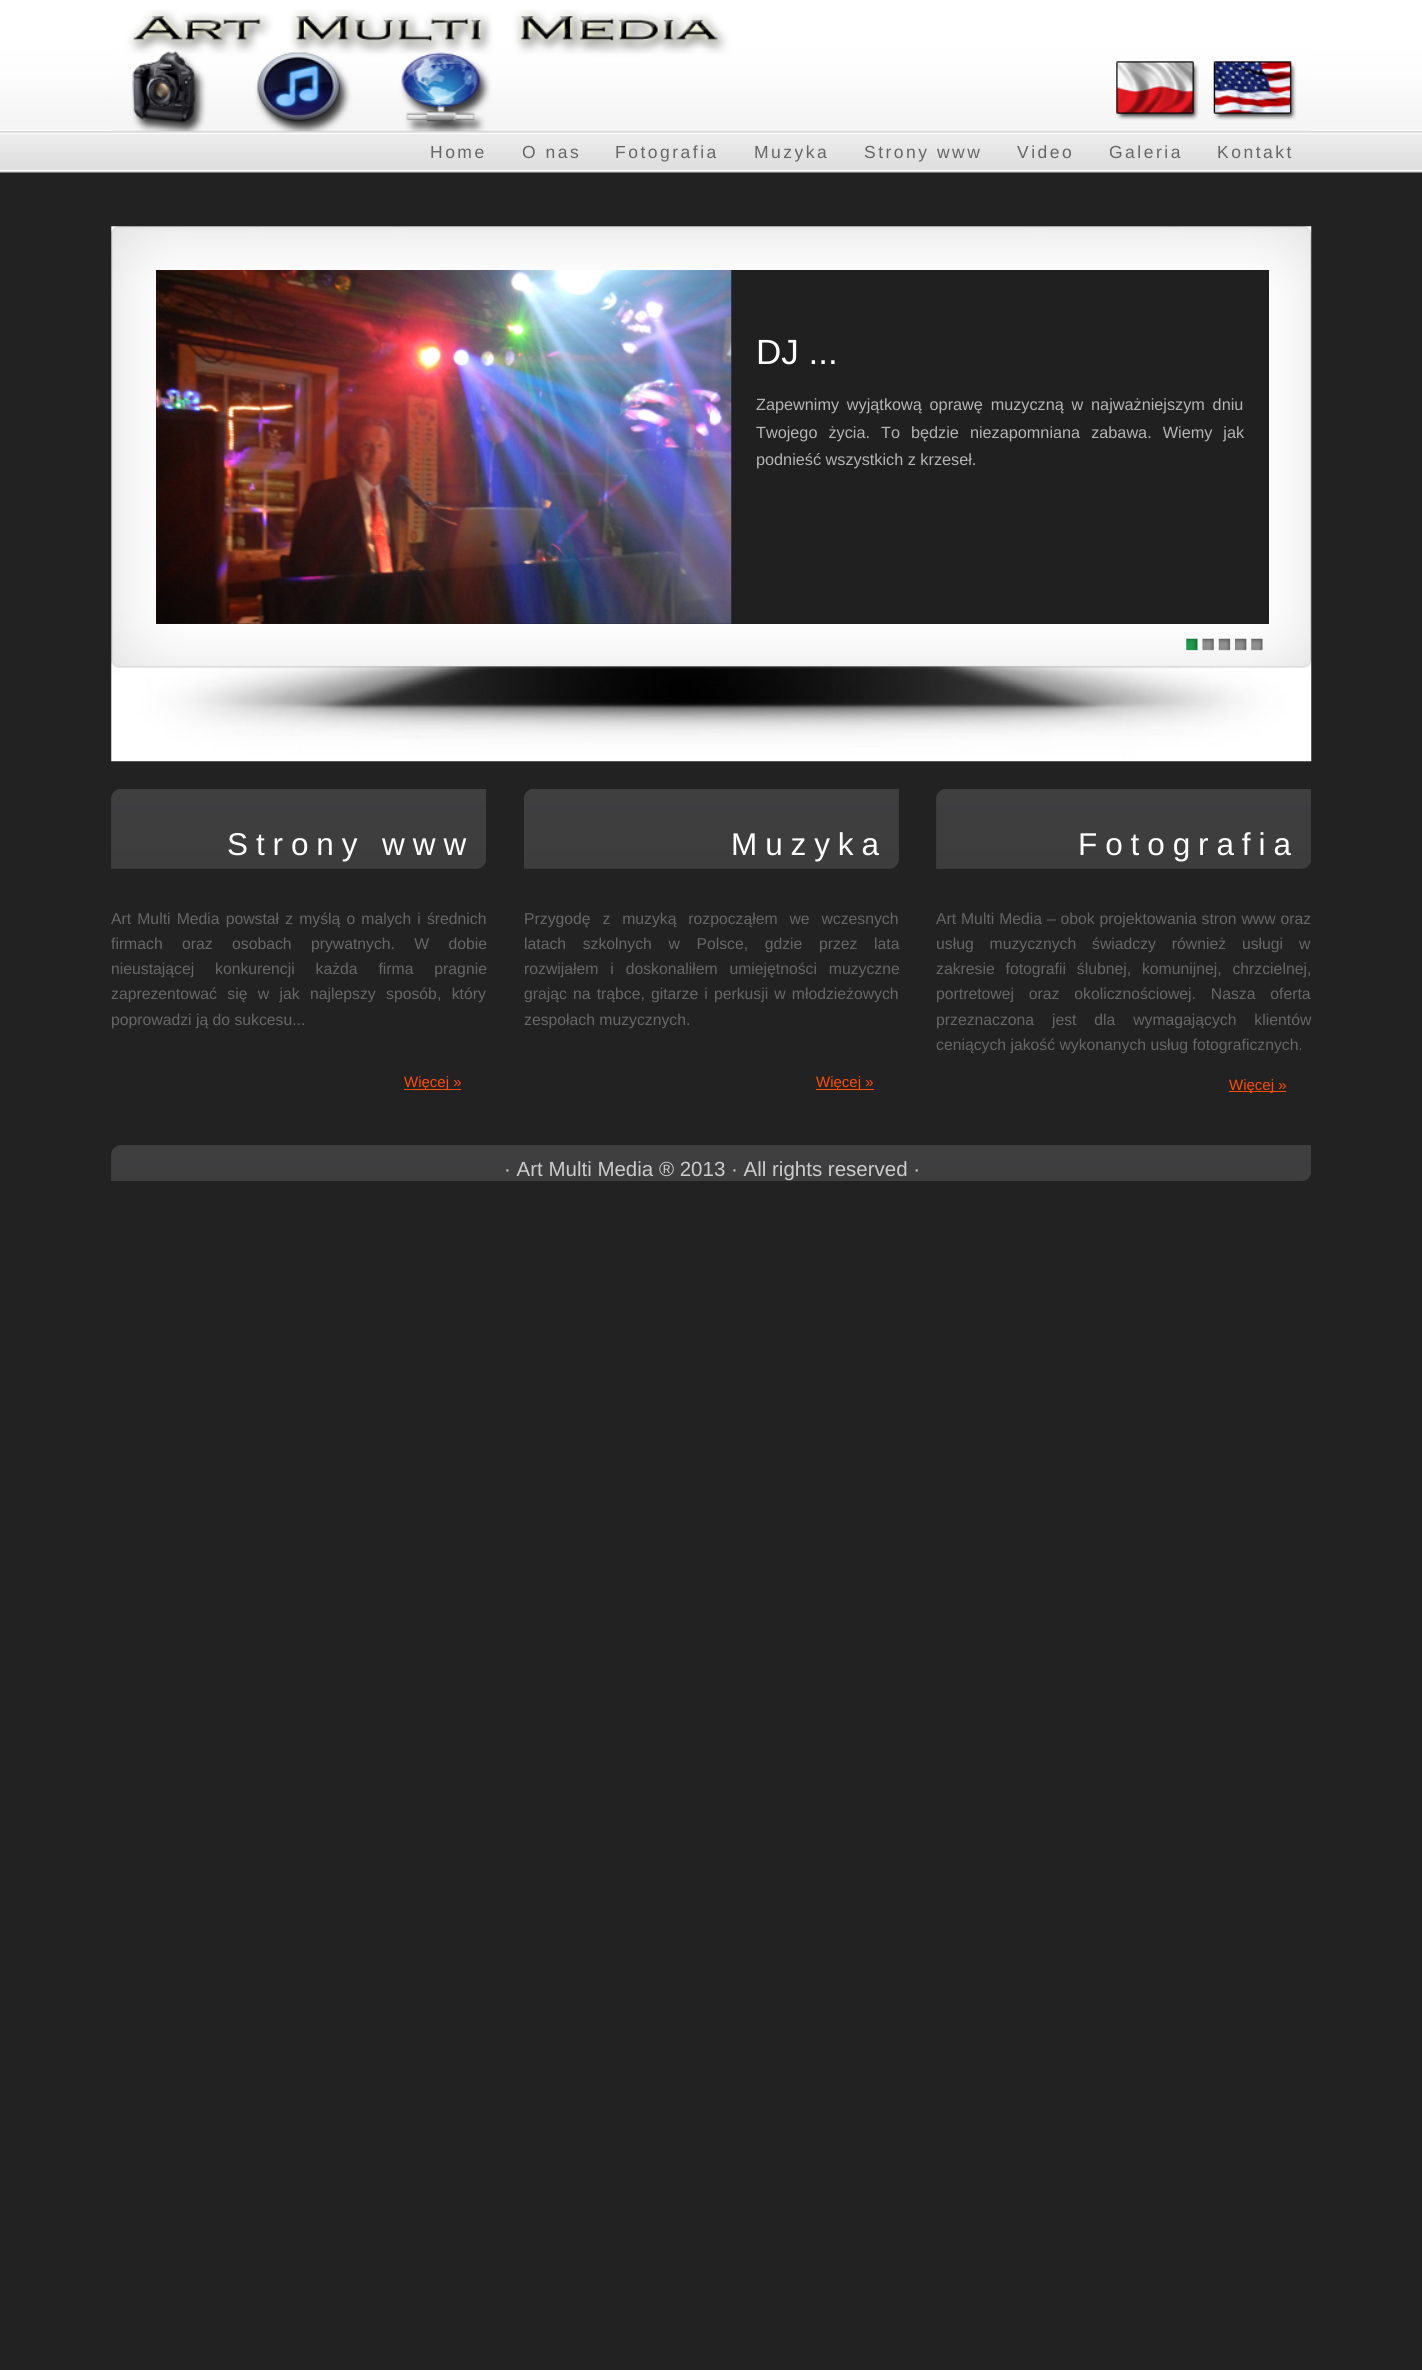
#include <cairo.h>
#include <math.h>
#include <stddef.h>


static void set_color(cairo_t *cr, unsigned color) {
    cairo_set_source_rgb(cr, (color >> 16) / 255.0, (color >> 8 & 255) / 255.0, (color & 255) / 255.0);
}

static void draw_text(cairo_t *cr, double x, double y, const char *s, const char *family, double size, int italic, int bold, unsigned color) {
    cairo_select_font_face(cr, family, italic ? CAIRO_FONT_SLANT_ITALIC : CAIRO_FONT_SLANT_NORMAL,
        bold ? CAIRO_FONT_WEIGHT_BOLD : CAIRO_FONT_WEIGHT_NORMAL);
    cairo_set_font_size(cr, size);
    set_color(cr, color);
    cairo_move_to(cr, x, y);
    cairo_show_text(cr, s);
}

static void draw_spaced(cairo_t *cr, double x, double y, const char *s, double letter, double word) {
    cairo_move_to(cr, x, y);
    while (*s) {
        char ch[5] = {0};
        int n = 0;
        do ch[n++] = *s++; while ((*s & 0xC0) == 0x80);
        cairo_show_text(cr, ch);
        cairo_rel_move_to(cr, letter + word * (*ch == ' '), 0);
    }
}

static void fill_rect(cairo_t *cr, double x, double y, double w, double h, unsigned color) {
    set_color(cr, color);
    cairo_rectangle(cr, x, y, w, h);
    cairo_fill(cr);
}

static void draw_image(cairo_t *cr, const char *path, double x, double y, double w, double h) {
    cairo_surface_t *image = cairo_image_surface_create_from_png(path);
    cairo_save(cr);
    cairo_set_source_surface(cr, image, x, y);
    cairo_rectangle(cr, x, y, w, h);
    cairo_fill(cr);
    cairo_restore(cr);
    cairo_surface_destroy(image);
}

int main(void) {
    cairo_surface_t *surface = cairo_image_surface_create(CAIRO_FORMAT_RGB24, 1422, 2370);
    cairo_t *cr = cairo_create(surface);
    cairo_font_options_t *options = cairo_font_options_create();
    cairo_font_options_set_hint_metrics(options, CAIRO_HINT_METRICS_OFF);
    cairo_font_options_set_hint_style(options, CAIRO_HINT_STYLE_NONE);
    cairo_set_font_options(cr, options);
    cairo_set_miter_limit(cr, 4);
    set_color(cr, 0x222222);
    cairo_paint(cr);
    draw_image(cr, "assets/img1.png", 0, 0, 1422, 173);
    draw_image(cr, "assets/img2.png", 111, 9, 1201, 123);
    cairo_select_font_face(cr, "Liberation Sans", CAIRO_FONT_SLANT_NORMAL, CAIRO_FONT_WEIGHT_NORMAL);
    cairo_set_font_size(cr, 17.5);
    set_color(cr, 0x666666);
    draw_spaced(cr, 430, 158, "Home", 2.5, 0);
    draw_spaced(cr, 522, 158, "O nas", 2.5, 0);
    draw_spaced(cr, 615, 158, "Fotografia", 2.5, 0);
    draw_spaced(cr, 754, 158, "Muzyka", 2.5, 0);
    draw_spaced(cr, 864, 158, "Strony www", 2.5, 0);
    draw_spaced(cr, 1017, 158, "Video", 2.5, 0);
    draw_spaced(cr, 1109, 158, "Galeria", 2.5, 0);
    draw_spaced(cr, 1217, 158, "Kontakt", 2.5, 0);
    draw_image(cr, "assets/img3.png", 111, 226, 1201, 536);
    fill_rect(cr, 156, 270, 1113, 354, 0x202020);
    draw_image(cr, "assets/img4.png", 156, 270, 576, 354);
    draw_text(cr, 756, 364, "DJ ...", "Liberation Sans", 35, 0, 0, 0xFFFFFF);
    cairo_set_font_size(cr, 16.25);
    set_color(cr, 0xB5B5B5);
    draw_spaced(cr, 756, 410, "Zapewnimy wyjątkową oprawę muzyczną w najważniejszym dniu", 0, 3.25);
    draw_spaced(cr, 756, 438, "Twojego życia.", 0, 6.5);
    draw_spaced(cr, 881, 438, "To będzie niezapomniana zabawa. Wiemy jak", 0, 6.5);
    draw_text(cr, 756, 465, "podnieść wszystkich z krzeseł.", "Liberation Sans", 16.25, 0, 0, 0xB5B5B5);
    draw_image(cr, "assets/img5.png", 1186, 638, 12, 13);
    draw_image(cr, "assets/img6.png", 1202, 638, 12, 13);
    draw_image(cr, "assets/img7.png", 1218, 638, 13, 13);
    draw_image(cr, "assets/img8.png", 1235, 638, 12, 13);
    draw_image(cr, "assets/img9.png", 1251, 638, 12, 13);
    set_color(cr, 0x373737);
    cairo_new_path(cr);
    cairo_move_to(cr, 121, 789);
    cairo_line_to(cr, 486, 789);
    cairo_line_to(cr, 486, 859);
    cairo_curve_to(cr, 486, 864.5, 481.5, 869, 476, 869);
    cairo_line_to(cr, 111, 869);
    cairo_line_to(cr, 111, 799);
    cairo_curve_to(cr, 111, 793.5, 115.5, 789, 121, 789);
    cairo_close_path(cr);
    cairo_fill(cr);
    draw_image(cr, "assets/img10.png", 111, 789, 375, 79);
    cairo_set_font_size(cr, 31.5);
    set_color(cr, 0xFFFFFF);
    draw_spaced(cr, 227, 855, "Strony www", 7.9, 0);
    cairo_set_font_size(cr, 15.75);
    set_color(cr, 0x666666);
    draw_spaced(cr, 111, 924, "Art Multi Media powstał z myślą o malych i średnich", 0, 1.75);
    draw_spaced(cr, 111, 949, "firmach oraz osobach prywatnych. W dobie", 0, 15);
    draw_spaced(cr, 111, 974, "nieustającej konkurencji każda firma pragnie", 0, 16.5);
    draw_spaced(cr, 111, 999, "zaprezentować się w jak najlepszy sposób, który", 0, 6);
    draw_text(cr, 111, 1025, "poprowadzi ją do sukcesu...", "Liberation Sans", 15.75, 0, 0, 0x666666);
    fill_rect(cr, 404, 1089, 57, 1, 0xFF4E00);
    draw_text(cr, 404, 1087, "Więcej »", "Liberation Sans", 15, 0, 0, 0xFF4E00);
    set_color(cr, 0x373737);
    cairo_new_path(cr);
    cairo_move_to(cr, 534, 789);
    cairo_line_to(cr, 899, 789);
    cairo_line_to(cr, 899, 859);
    cairo_curve_to(cr, 899, 864.5, 894.5, 869, 889, 869);
    cairo_line_to(cr, 524, 869);
    cairo_line_to(cr, 524, 799);
    cairo_curve_to(cr, 524, 793.5, 528.5, 789, 534, 789);
    cairo_close_path(cr);
    cairo_fill(cr);
    draw_image(cr, "assets/img11.png", 524, 789, 375, 79);
    cairo_set_font_size(cr, 31.5);
    set_color(cr, 0xFFFFFF);
    draw_spaced(cr, 731, 855, "Muzyka", 7.9, 0);
    cairo_set_font_size(cr, 15.75);
    set_color(cr, 0x666666);
    draw_spaced(cr, 524, 924, "Przygodę z muzyką rozpocząłem we wczesnych", 0, 7.5);
    draw_spaced(cr, 524, 949, "latach szkolnych w Polsce, gdzie przez lata", 0, 12.25);
    draw_spaced(cr, 524, 974, "rozwijałem i doskonaliłem umiejętności muzyczne", 0, 7.5);
    draw_spaced(cr, 524, 999, "grając na trąbce, gitarze i perkusji w młodzieżowych", 0, 1.75);
    draw_text(cr, 524, 1025, "zespołach muzycznych.", "Liberation Sans", 15.75, 0, 0, 0x666666);
    fill_rect(cr, 816, 1089, 58, 1, 0xFF4E00);
    draw_text(cr, 816, 1087, "Więcej »", "Liberation Sans", 15, 0, 0, 0xFF4E00);
    set_color(cr, 0x373737);
    cairo_new_path(cr);
    cairo_move_to(cr, 946, 789);
    cairo_line_to(cr, 1311, 789);
    cairo_line_to(cr, 1311, 859);
    cairo_curve_to(cr, 1311, 864.5, 1306.5, 869, 1301, 869);
    cairo_line_to(cr, 936, 869);
    cairo_line_to(cr, 936, 799);
    cairo_curve_to(cr, 936, 793.5, 940.5, 789, 946, 789);
    cairo_close_path(cr);
    cairo_fill(cr);
    draw_image(cr, "assets/img12.png", 936, 789, 375, 79);
    cairo_set_font_size(cr, 31.5);
    set_color(cr, 0xFFFFFF);
    draw_spaced(cr, 1078, 855, "Fotografia", 7.9, 0);
    cairo_set_font_size(cr, 15.75);
    set_color(cr, 0x666666);
    draw_spaced(cr, 936, 924, "Art Multi Media – obok projektowania stron www oraz", 0, 0.5);
    draw_spaced(cr, 936, 949, "usług muzycznych świadczy również usługi w", 0, 11.5);
    draw_spaced(cr, 936, 974, "zakresie fotografii ślubnej, komunijnej, chrzcielnej,", 0, 6.5);
    draw_spaced(cr, 936, 999, "portretowej oraz okolicznościowej. Nasza oferta", 0, 10.5);
    draw_spaced(cr, 936, 1025, "przeznaczona jest dla wymagających klientów", 0, 13.5);
    draw_text(cr, 936, 1050, "ceniących jakość wykonanych usług fotograficznych.", "Liberation Sans", 15.75, 0, 0, 0x666666);
    fill_rect(cr, 1229, 1091, 57, 1, 0xFF4E00);
    draw_text(cr, 1229, 1090, "Więcej »", "Liberation Sans", 15, 0, 0, 0xFF4E00);
    set_color(cr, 0x373737);
    cairo_new_path(cr);
    cairo_move_to(cr, 121, 1145);
    cairo_line_to(cr, 1311, 1145);
    cairo_line_to(cr, 1311, 1171);
    cairo_curve_to(cr, 1311, 1176.5, 1306.5, 1181, 1301, 1181);
    cairo_line_to(cr, 111, 1181);
    cairo_line_to(cr, 111, 1155);
    cairo_curve_to(cr, 111, 1149.5, 115.5, 1145, 121, 1145);
    cairo_close_path(cr);
    cairo_fill(cr);
    draw_image(cr, "assets/img13.png", 111, 1145, 1200, 36);
    draw_text(cr, 504, 1176, "· Art Multi Media ® 2013 · All rights reserved ·", "Liberation Sans", 20.5, 0, 0, 0xCCCCCC);
    cairo_surface_write_to_png(surface, "output.png");
    cairo_font_options_destroy(options);
    cairo_destroy(cr);
    cairo_surface_destroy(surface);
    return 0;
}
